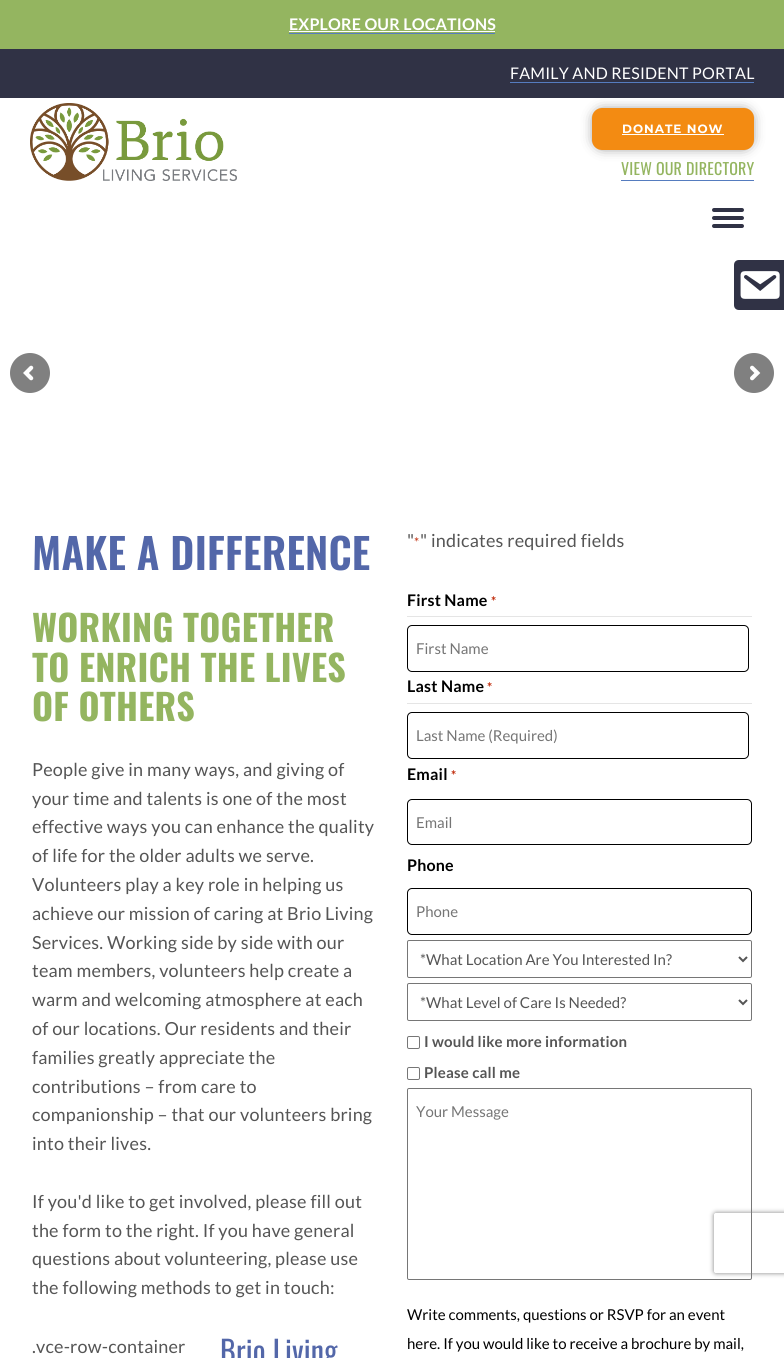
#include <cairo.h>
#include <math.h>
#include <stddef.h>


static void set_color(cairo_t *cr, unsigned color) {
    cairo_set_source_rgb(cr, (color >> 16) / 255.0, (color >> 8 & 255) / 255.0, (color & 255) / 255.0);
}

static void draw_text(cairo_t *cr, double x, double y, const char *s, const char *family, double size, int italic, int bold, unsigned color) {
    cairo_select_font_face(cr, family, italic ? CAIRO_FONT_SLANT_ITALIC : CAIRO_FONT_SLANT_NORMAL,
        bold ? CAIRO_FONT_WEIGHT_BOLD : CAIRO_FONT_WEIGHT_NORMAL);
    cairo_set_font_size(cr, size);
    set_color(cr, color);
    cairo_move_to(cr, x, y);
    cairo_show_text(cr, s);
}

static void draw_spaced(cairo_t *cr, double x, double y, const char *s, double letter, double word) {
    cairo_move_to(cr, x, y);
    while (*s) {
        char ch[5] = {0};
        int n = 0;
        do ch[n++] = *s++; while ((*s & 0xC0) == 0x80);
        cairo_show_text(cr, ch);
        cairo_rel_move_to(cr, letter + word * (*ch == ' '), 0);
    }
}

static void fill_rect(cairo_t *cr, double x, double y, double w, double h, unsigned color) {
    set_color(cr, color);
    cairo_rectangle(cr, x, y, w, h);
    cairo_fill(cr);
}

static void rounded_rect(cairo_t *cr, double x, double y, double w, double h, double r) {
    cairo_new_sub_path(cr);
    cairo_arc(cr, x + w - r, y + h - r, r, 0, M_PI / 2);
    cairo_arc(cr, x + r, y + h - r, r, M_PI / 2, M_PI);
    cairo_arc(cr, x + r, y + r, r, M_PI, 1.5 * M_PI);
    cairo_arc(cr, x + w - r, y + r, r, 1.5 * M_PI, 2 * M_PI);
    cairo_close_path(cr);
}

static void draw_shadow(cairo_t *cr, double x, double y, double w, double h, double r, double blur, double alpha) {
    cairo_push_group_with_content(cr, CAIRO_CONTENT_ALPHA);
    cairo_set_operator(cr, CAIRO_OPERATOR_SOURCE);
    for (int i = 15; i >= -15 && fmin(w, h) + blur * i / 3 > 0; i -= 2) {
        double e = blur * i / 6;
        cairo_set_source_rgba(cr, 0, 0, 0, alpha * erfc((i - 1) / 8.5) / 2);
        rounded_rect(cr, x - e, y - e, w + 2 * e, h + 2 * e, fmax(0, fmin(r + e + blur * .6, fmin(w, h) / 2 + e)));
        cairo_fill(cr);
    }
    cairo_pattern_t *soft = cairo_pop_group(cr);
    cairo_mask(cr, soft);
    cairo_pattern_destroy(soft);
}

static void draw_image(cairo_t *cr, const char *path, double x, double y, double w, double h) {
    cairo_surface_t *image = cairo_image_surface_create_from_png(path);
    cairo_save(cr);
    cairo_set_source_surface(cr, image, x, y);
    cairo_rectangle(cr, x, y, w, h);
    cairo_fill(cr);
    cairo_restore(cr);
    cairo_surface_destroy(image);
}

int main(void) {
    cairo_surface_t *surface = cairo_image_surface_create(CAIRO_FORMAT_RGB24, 784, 1358);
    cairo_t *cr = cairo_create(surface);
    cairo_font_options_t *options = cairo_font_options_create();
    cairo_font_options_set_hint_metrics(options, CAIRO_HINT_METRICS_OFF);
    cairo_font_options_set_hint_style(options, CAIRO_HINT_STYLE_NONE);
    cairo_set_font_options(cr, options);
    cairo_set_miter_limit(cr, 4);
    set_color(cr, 0xFFFFFF);
    cairo_paint(cr);
    fill_rect(cr, 0, 0, 784, 49, 0x94B560);
    cairo_select_font_face(cr, "Lato", CAIRO_FONT_SLANT_NORMAL, CAIRO_FONT_WEIGHT_BOLD);
    cairo_set_font_size(cr, 16);
    set_color(cr, 0xFFFFFF);
    draw_spaced(cr, 289, 30, "EXPLORE OUR LOCATIONS", 0.2, 0);
    fill_rect(cr, 289, 33, 206, 1, 0x557CBF);
    fill_rect(cr, 289, 31, 206, 1, 0xFFFFFF);
    fill_rect(cr, 0, 49, 784, 49, 0x303245);
    cairo_select_font_face(cr, "Lato", CAIRO_FONT_SLANT_NORMAL, CAIRO_FONT_WEIGHT_NORMAL);
    set_color(cr, 0xFFFFFF);
    draw_spaced(cr, 510, 79, "FAMILY AND RESIDENT PORTAL", 0.2, 0);
    fill_rect(cr, 510, 82, 244, 1, 0x557CBF);
    draw_image(cr, "assets/img1.png", 30, 103, 207, 78);
    set_color(cr, 0x000000);
    draw_shadow(cr, 599, 115, 148, 28, 3, 7.5, 1);
    set_color(cr, 0xF38B12);
    rounded_rect(cr, 592, 108, 162, 42, 10);
    cairo_fill(cr);
    cairo_select_font_face(cr, "Montserrat Thin", CAIRO_FONT_SLANT_NORMAL, CAIRO_FONT_WEIGHT_NORMAL);
    cairo_set_font_size(cr, 12);
    set_color(cr, 0xFFFFFF);
    draw_spaced(cr, 622, 133, "DONATE NOW", 1, 0);
    fill_rect(cr, 622, 134, 102, 1, 0xFFFFFF);
    cairo_select_font_face(cr, "Oswald", CAIRO_FONT_SLANT_NORMAL, CAIRO_FONT_WEIGHT_NORMAL);
    cairo_set_font_size(cr, 16);
    set_color(cr, 0x94B560);
    draw_spaced(cr, 621, 175, "VIEW OUR DIRECTORY", 0.2, 0);
    fill_rect(cr, 621, 180, 133, 1, 0x557CBF);
    set_color(cr, 0x303245);
    rounded_rect(cr, 712, 208, 32, 4, 2);
    cairo_fill(cr);
    rounded_rect(cr, 712, 216, 32, 4, 2);
    cairo_fill(cr);
    rounded_rect(cr, 712, 224, 32, 4, 2);
    cairo_fill(cr);
    set_color(cr, 0x808080);
    cairo_arc(cr, 30, 373, 20, 0, 2 * M_PI);
    cairo_fill(cr);
    draw_image(cr, "assets/img2.png", 23, 365, 11, 16);
    cairo_arc(cr, 754, 373, 20, 0, 2 * M_PI);
    cairo_fill(cr);
    draw_image(cr, "assets/img3.png", 750, 365, 11, 16);
    cairo_select_font_face(cr, "Oswald SemiBold", CAIRO_FONT_SLANT_NORMAL, CAIRO_FONT_WEIGHT_NORMAL);
    cairo_set_font_size(cr, 42);
    set_color(cr, 0x5367A9);
    draw_spaced(cr, 32, 570, "MAKE A DIFFERENCE", 0.2, 0);
    cairo_select_font_face(cr, "Oswald", CAIRO_FONT_SLANT_NORMAL, CAIRO_FONT_WEIGHT_BOLD);
    cairo_set_font_size(cr, 36);
    set_color(cr, 0x94B560);
    draw_spaced(cr, 32, 642, "WORKING TOGETHER", 0.2, 0);
    draw_spaced(cr, 32, 682, "TO ENRICH THE LIVES", 0.2, 0);
    draw_spaced(cr, 32, 721, "OF OTHERS", 0.2, 0);
    cairo_select_font_face(cr, "Lato", CAIRO_FONT_SLANT_NORMAL, CAIRO_FONT_WEIGHT_NORMAL);
    cairo_set_font_size(cr, 18);
    set_color(cr, 0x555555);
    draw_spaced(cr, 32, 776, "People give in many ways, and giving of", 0.2, 0);
    draw_spaced(cr, 32, 805, "your time and talents is one of the most", 0.2, 0);
    draw_spaced(cr, 32, 833, "effective ways you can enhance the quality", 0.2, 0);
    draw_spaced(cr, 32, 862, "of life for the older adults we serve.", 0.2, 0);
    draw_spaced(cr, 32, 891, "Volunteers play a key role in helping us", 0.2, 0);
    draw_spaced(cr, 32, 920, "achieve our mission of caring at Brio Living", 0.2, 0);
    draw_spaced(cr, 32, 949, "Services. Working side by side with our", 0.2, 0);
    draw_spaced(cr, 32, 977, "team members, volunteers help create a", 0.2, 0);
    draw_spaced(cr, 32, 1006, "warm and welcoming atmosphere at each", 0.2, 0);
    draw_spaced(cr, 32, 1035, "of our locations. Our residents and their", 0.2, 0);
    draw_spaced(cr, 32, 1064, "families greatly appreciate the", 0.2, 0);
    draw_spaced(cr, 32, 1093, "contributions – from care to", 0.2, 0);
    draw_spaced(cr, 32, 1121, "companionship – that our volunteers bring", 0.2, 0);
    draw_spaced(cr, 32, 1150, "into their lives.", 0.2, 0);
    draw_spaced(cr, 32, 1208, "If you'd like to get involved, please fill out", 0.2, 0);
    draw_spaced(cr, 32, 1237, "the form to the right. If you have general", 0.2, 0);
    draw_spaced(cr, 32, 1265, "questions about volunteering, please use", 0.2, 0);
    draw_spaced(cr, 32, 1294, "the following methods to get in touch:", 0.2, 0);
    draw_spaced(cr, 32, 1353, ".vce-row-container", 0.2, 0);
    cairo_select_font_face(cr, "Oswald", CAIRO_FONT_SLANT_NORMAL, CAIRO_FONT_WEIGHT_NORMAL);
    cairo_set_font_size(cr, 30);
    set_color(cr, 0x5367A9);
    draw_spaced(cr, 220, 1363, "Brio Living", 0.2, 0);
    cairo_select_font_face(cr, "Lato", CAIRO_FONT_SLANT_NORMAL, CAIRO_FONT_WEIGHT_NORMAL);
    cairo_set_font_size(cr, 18);
    set_color(cr, 0x555555);
    draw_spaced(cr, 407, 547, "\"", 0.2, 0);
    draw_spaced(cr, 420, 547, "\" indicates required fields", 0.2, 0);
    cairo_set_font_size(cr, 13);
    set_color(cr, 0xC02B0A);
    draw_spaced(cr, 414, 547, "*", 0.2, 0);
    fill_rect(cr, 407, 616, 345, 1, 0xE5E5E5);
    cairo_select_font_face(cr, "Lato", CAIRO_FONT_SLANT_NORMAL, CAIRO_FONT_WEIGHT_BOLD);
    cairo_set_font_size(cr, 16);
    set_color(cr, 0x000000);
    draw_spaced(cr, 407, 606, "First Name", 0.2, 0);
    cairo_set_font_size(cr, 13);
    set_color(cr, 0xC02B0A);
    draw_spaced(cr, 491, 606, "*", 0.2, 0);
    rounded_rect(cr, 407.5, 625.5, 341, 46, 4.5);
    set_color(cr, 0x000000);
    cairo_set_line_width(cr, 1);
    cairo_stroke(cr);
    draw_text(cr, 416, 654, "First Name", "Lato", 15, 0, 0, 0x757575);
    fill_rect(cr, 407, 703, 345, 1, 0xE5E5E5);
    cairo_select_font_face(cr, "Lato", CAIRO_FONT_SLANT_NORMAL, CAIRO_FONT_WEIGHT_BOLD);
    cairo_set_font_size(cr, 16);
    set_color(cr, 0x000000);
    draw_spaced(cr, 407, 692, "Last Name", 0.2, 0);
    cairo_set_font_size(cr, 13);
    set_color(cr, 0xC02B0A);
    draw_spaced(cr, 487, 692, "*", 0.2, 0);
    rounded_rect(cr, 407.5, 712.5, 341, 46, 4.5);
    set_color(cr, 0x000000);
    cairo_stroke(cr);
    draw_text(cr, 416, 741, "Last Name (Required)", "Lato", 15, 0, 0, 0x757575);
    cairo_select_font_face(cr, "Lato", CAIRO_FONT_SLANT_NORMAL, CAIRO_FONT_WEIGHT_BOLD);
    cairo_set_font_size(cr, 16);
    set_color(cr, 0x000000);
    draw_spaced(cr, 407, 780, "Email", 0.2, 0);
    cairo_set_font_size(cr, 13);
    set_color(cr, 0xC02B0A);
    draw_spaced(cr, 451, 780, "*", 0.2, 0);
    rounded_rect(cr, 407.5, 799.5, 344, 45, 4.5);
    set_color(cr, 0x000000);
    cairo_stroke(cr);
    draw_text(cr, 416, 828, "Email", "Lato", 15, 0, 0, 0x757575);
    cairo_select_font_face(cr, "Lato", CAIRO_FONT_SLANT_NORMAL, CAIRO_FONT_WEIGHT_BOLD);
    cairo_set_font_size(cr, 16);
    set_color(cr, 0x000000);
    draw_spaced(cr, 407, 871, "Phone", 0.2, 0);
    rounded_rect(cr, 407.5, 888.5, 344, 46, 4.5);
    cairo_stroke(cr);
    draw_text(cr, 416, 917, "Phone", "Lato", 15, 0, 0, 0x757575);
    rounded_rect(cr, 407.5, 940.5, 344, 37, 1.5);
    set_color(cr, 0x767676);
    cairo_stroke(cr);
    cairo_new_path(cr);
    cairo_move_to(cr, 739, 957);
    cairo_line_to(cr, 743, 961);
    cairo_line_to(cr, 747, 957);
    set_color(cr, 0x555555);
    cairo_set_line_width(cr, 2);
    cairo_stroke(cr);
    draw_text(cr, 420, 965, "*What Location Are You Interested In?", "Lato", 15, 0, 0, 0x555555);
    rounded_rect(cr, 407.5, 983.5, 344, 37, 1.5);
    set_color(cr, 0x767676);
    cairo_set_line_width(cr, 1);
    cairo_stroke(cr);
    cairo_new_path(cr);
    cairo_move_to(cr, 739, 1000);
    cairo_line_to(cr, 743, 1004);
    cairo_line_to(cr, 747, 1000);
    set_color(cr, 0x555555);
    cairo_set_line_width(cr, 2);
    cairo_stroke(cr);
    draw_text(cr, 420, 1008, "*What Level of Care Is Needed?", "Lato", 15, 0, 0, 0x555555);
    rounded_rect(cr, 407.5, 1036.5, 12, 12, 1.5);
    set_color(cr, 0x767676);
    cairo_set_line_width(cr, 1);
    cairo_stroke(cr);
    cairo_select_font_face(cr, "Lato", CAIRO_FONT_SLANT_NORMAL, CAIRO_FONT_WEIGHT_BOLD);
    set_color(cr, 0x555555);
    draw_spaced(cr, 424, 1047, "I would like more information", 0.2, 0);
    rounded_rect(cr, 407.5, 1067.5, 12, 12, 1.5);
    set_color(cr, 0x767676);
    cairo_stroke(cr);
    set_color(cr, 0x555555);
    draw_spaced(cr, 424, 1078, "Please call me", 0.2, 0);
    rounded_rect(cr, 407.5, 1088.5, 344, 191, 1.5);
    set_color(cr, 0x767676);
    cairo_stroke(cr);
    draw_text(cr, 416, 1117, "Your Message", "Lato", 15, 0, 0, 0x757575);
    draw_text(cr, 407, 1320, "Write comments, questions or RSVP for an event", "Lato", 15, 0, 0, 0x000000);
    draw_text(cr, 407, 1349, "here. If you would like to receive a brochure by mail,", "Lato", 15, 0, 0, 0x000000);
    set_color(cr, 0x303245);
    cairo_new_path(cr);
    cairo_move_to(cr, 739, 260);
    cairo_line_to(cr, 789, 260);
    cairo_line_to(cr, 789, 310);
    cairo_line_to(cr, 739, 310);
    cairo_curve_to(cr, 736, 310, 734, 308, 734, 305);
    cairo_line_to(cr, 734, 265);
    cairo_curve_to(cr, 734, 262, 736, 260, 739, 260);
    cairo_close_path(cr);
    cairo_fill(cr);
    draw_image(cr, "assets/img4.png", 740, 271, 40, 28);
    cairo_save(cr);
    cairo_set_fill_rule(cr, CAIRO_FILL_RULE_EVEN_ODD);
    cairo_new_path(cr);
    cairo_move_to(cr, 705, 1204);
    cairo_line_to(cr, 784, 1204);
    cairo_line_to(cr, 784, 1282);
    cairo_line_to(cr, 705, 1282);
    cairo_close_path(cr);
    cairo_move_to(cr, 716, 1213);
    cairo_line_to(cr, 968, 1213);
    cairo_curve_to(cr, 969, 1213, 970, 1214, 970, 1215);
    cairo_line_to(cr, 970, 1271);
    cairo_curve_to(cr, 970, 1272, 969, 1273, 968, 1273);
    cairo_line_to(cr, 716, 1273);
    cairo_curve_to(cr, 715, 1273, 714, 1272, 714, 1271);
    cairo_line_to(cr, 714, 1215);
    cairo_curve_to(cr, 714, 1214, 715, 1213, 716, 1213);
    cairo_close_path(cr);
    cairo_clip(cr);
    set_color(cr, 0x808080);
    draw_shadow(cr, 714, 1213, 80, 60, 2, 2.5, 1);
    cairo_restore(cr);
    cairo_surface_write_to_png(surface, "output.png");
    cairo_font_options_destroy(options);
    cairo_destroy(cr);
    cairo_surface_destroy(surface);
    return 0;
}
